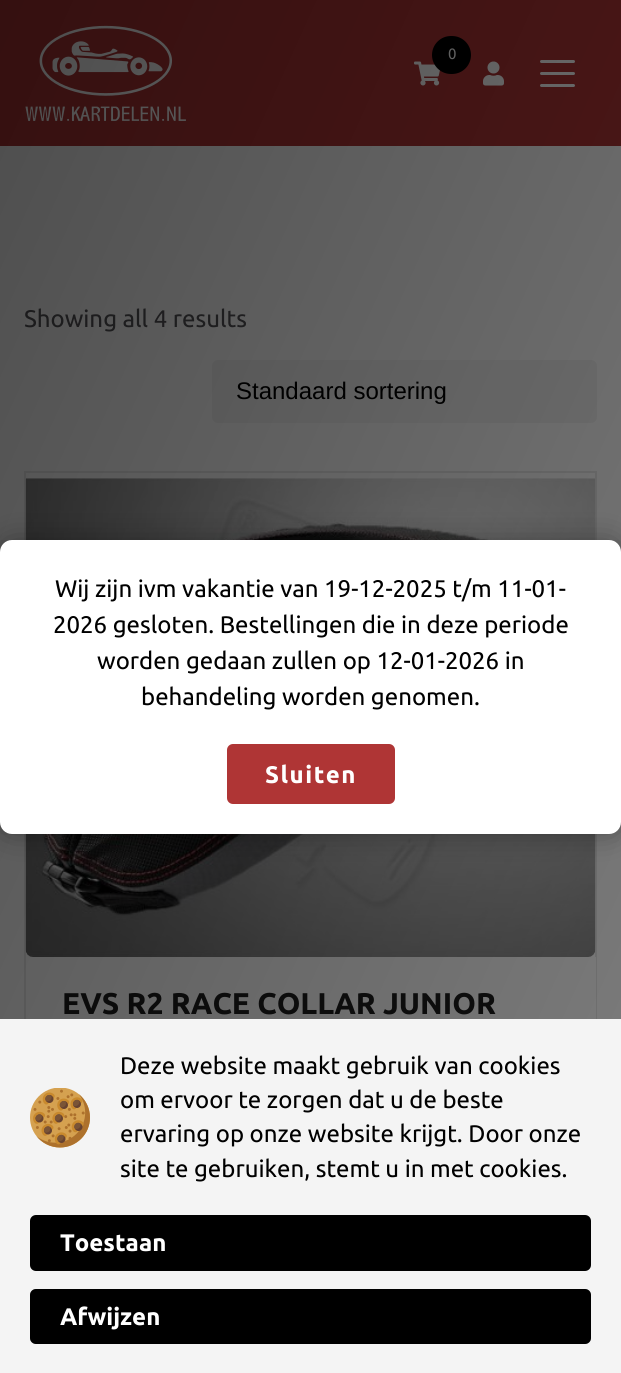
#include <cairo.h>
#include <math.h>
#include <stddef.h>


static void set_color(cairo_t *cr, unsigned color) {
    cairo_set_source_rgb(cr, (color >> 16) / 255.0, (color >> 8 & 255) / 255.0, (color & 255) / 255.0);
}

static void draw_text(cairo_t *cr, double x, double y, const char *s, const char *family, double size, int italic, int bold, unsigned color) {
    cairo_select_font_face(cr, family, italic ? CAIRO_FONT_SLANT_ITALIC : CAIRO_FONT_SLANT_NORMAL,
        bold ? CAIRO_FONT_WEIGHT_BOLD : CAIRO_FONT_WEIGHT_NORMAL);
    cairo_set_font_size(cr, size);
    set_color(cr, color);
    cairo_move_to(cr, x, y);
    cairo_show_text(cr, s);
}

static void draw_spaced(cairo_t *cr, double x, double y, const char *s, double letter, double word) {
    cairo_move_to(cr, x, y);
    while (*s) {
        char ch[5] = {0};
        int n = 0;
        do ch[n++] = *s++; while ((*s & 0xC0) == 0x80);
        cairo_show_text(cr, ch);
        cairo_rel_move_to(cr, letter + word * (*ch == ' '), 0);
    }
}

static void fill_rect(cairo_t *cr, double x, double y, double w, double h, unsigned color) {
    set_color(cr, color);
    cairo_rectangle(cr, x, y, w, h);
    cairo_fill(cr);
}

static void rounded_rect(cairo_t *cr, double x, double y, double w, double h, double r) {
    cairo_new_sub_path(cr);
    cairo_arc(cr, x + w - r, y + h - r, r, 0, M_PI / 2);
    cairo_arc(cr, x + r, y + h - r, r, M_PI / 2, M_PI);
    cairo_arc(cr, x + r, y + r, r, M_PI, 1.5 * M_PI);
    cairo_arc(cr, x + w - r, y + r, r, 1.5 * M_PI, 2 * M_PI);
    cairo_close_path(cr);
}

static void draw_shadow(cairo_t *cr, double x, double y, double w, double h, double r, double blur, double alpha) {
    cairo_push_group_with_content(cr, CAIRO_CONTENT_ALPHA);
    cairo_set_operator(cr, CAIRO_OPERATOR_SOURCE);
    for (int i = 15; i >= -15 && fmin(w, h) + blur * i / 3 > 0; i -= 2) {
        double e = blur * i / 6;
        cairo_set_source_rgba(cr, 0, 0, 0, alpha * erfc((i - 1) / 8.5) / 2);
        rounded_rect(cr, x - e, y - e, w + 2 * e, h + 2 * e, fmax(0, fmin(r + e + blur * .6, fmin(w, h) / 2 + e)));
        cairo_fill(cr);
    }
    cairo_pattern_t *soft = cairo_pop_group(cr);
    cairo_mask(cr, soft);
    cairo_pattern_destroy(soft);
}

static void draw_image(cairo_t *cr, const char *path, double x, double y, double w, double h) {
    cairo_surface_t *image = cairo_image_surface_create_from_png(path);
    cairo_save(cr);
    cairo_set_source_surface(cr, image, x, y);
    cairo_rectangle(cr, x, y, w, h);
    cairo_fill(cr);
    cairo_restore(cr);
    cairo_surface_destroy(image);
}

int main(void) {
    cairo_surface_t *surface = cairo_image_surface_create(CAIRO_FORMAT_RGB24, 621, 1373);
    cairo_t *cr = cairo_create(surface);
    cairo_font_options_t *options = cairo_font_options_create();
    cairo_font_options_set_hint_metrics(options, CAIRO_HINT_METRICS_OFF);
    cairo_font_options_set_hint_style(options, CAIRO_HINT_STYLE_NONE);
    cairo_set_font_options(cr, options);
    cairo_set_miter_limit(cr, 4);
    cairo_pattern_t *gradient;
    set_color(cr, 0xFFFFFF);
    cairo_paint(cr);
    fill_rect(cr, 0, 0, 621, 146, 0xAF3535);
    draw_image(cr, "assets/img1.png", 25, 25, 161, 96);
    draw_image(cr, "assets/img2.png", 414, 61, 26, 25);
    set_color(cr, 0x000000);
    rounded_rect(cr, 432, 36, 39, 38, 19);
    cairo_fill(cr);
    draw_text(cr, 448, 59, "0", "Ubuntu", 15, 0, 0, 0xFFFFFF);
    draw_image(cr, "assets/img3.png", 483, 61, 21, 25);
    rounded_rect(cr, 540, 60, 35, 3, 1.5);
    cairo_fill(cr);
    rounded_rect(cr, 540, 72, 35, 3, 1.5);
    cairo_fill(cr);
    rounded_rect(cr, 540, 84, 35, 3, 1.5);
    cairo_fill(cr);
    draw_text(cr, 24, 327, "Showing all 4 results", "Ubuntu", 24, 0, 0, 0x555458);
    set_color(cr, 0xF4F4F4);
    rounded_rect(cr, 213, 361, 383, 61, 5);
    cairo_fill_preserve(cr);
    cairo_stroke(cr);
    draw_text(cr, 236, 399, "Standaard sortering", "Liberation Sans", 24, 0, 0, 0x000000);
    cairo_rectangle(cr, 25, 472, 571, 657);
    set_color(cr, 0xEAEAEA);
    cairo_stroke(cr);
    draw_image(cr, "assets/img4.png", 25, 478, 571, 479);
    fill_rect(cr, 595, 957, 1, 62, 0xFFFFFF);
    draw_text(cr, 62, 1014, "EVS R2 RACE COLLAR JUNIOR", "Ubuntu", 30, 0, 1, 0x1D1D1D);
    set_color(cr, 0x000000);
    draw_shadow(cr, 0, 557, 621, 264, 0, 12, 0.2);
    gradient = cairo_pattern_create_linear(-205, 454, 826, 920);
    cairo_pattern_add_color_stop_rgba(gradient, 0, 0, 0, 0, 0.7);
    cairo_pattern_add_color_stop_rgba(gradient, 1, 0, 0, 0, 0.5);
    cairo_set_source(cr, gradient);
    cairo_pattern_destroy(gradient);
    cairo_rectangle(cr, 0, 0, 621, 1019);
    cairo_fill(cr);
    set_color(cr, 0x000000);
    draw_shadow(cr, 0, 540, 621, 294, 12, 15, 0.3);
    set_color(cr, 0xFFFFFF);
    rounded_rect(cr, 0, 540, 621, 294, 12);
    cairo_fill(cr);
    draw_text(cr, 55, 597, "Wij zijn ivm vakantie van 19-12-2025 t/m 11-01-", "Ubuntu", 24, 0, 0, 0x000000);
    draw_text(cr, 53, 633, "2026 gesloten. Bestellingen die in deze periode", "Ubuntu", 24, 0, 0, 0x000000);
    draw_text(cr, 97, 669, "worden gedaan zullen op 12-01-2026 in", "Ubuntu", 24, 0, 0, 0x000000);
    draw_text(cr, 141, 705, "behandeling worden genomen.", "Ubuntu", 24, 0, 0, 0x000000);
    set_color(cr, 0xAF3535);
    rounded_rect(cr, 228, 745, 166, 58, 5);
    cairo_fill_preserve(cr);
    cairo_stroke(cr);
    cairo_select_font_face(cr, "Ubuntu", CAIRO_FONT_SLANT_NORMAL, CAIRO_FONT_WEIGHT_BOLD);
    set_color(cr, 0xFFFFFF);
    draw_spaced(cr, 265, 783, "Sluiten", 1.5, 0);
    fill_rect(cr, 0, 1019, 621, 354, 0xF4F4F4);
    draw_image(cr, "assets/img5.png", 30, 1088, 60, 60);
    draw_text(cr, 120, 1074, "Deze website maakt gebruik van cookies", "Ubuntu", 24, 0, 0, 0x000000);
    draw_text(cr, 120, 1108, "om ervoor te zorgen dat u de beste", "Ubuntu", 24, 0, 0, 0x000000);
    draw_text(cr, 120, 1142, "ervaring op onze website krijgt. Door onze", "Ubuntu", 24, 0, 0, 0x000000);
    draw_text(cr, 120, 1177, "site te gebruiken, stemt u in met cookies.", "Ubuntu", 24, 0, 0, 0x000000);
    rounded_rect(cr, 30, 1215, 561, 56, 6);
    cairo_fill(cr);
    draw_text(cr, 60, 1251, "Toestaan", "Ubuntu", 24, 0, 1, 0xFFFFFF);
    set_color(cr, 0x000000);
    rounded_rect(cr, 30, 1289, 561, 55, 6);
    cairo_fill(cr);
    rounded_rect(cr, 31, 1290, 559, 53, 5);
    cairo_set_source_rgba(cr, 0, 0, 0, 0.3);
    cairo_stroke(cr);
    draw_text(cr, 60, 1325, "Afwijzen", "Ubuntu", 24, 0, 1, 0xFFFFFF);
    cairo_surface_write_to_png(surface, "output.png");
    cairo_font_options_destroy(options);
    cairo_destroy(cr);
    cairo_surface_destroy(surface);
    return 0;
}
